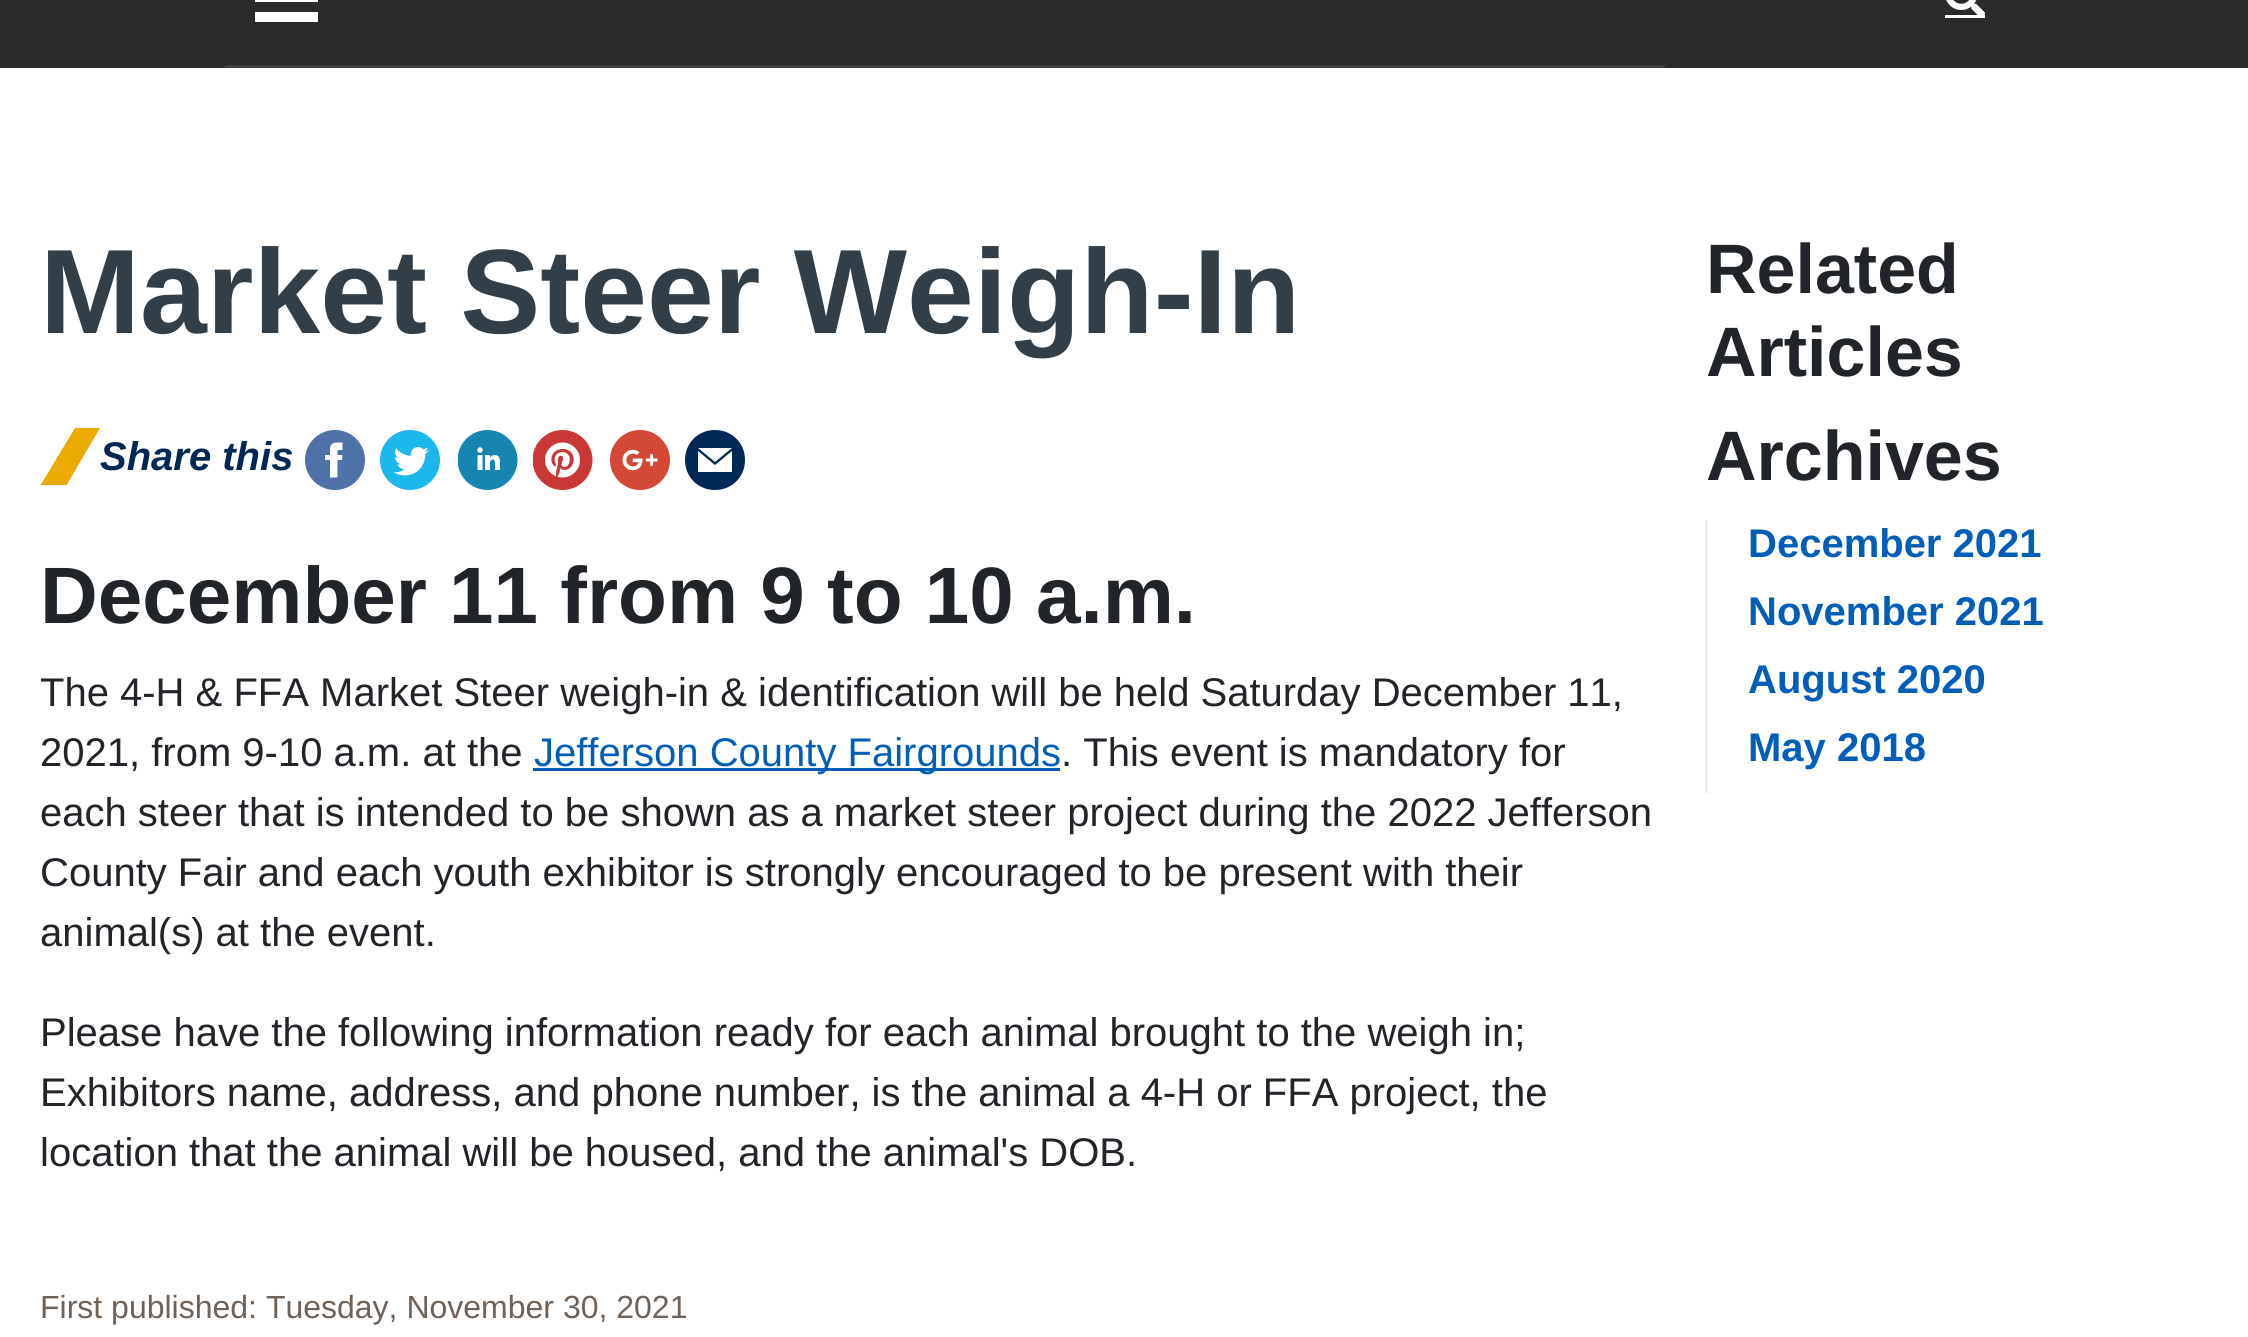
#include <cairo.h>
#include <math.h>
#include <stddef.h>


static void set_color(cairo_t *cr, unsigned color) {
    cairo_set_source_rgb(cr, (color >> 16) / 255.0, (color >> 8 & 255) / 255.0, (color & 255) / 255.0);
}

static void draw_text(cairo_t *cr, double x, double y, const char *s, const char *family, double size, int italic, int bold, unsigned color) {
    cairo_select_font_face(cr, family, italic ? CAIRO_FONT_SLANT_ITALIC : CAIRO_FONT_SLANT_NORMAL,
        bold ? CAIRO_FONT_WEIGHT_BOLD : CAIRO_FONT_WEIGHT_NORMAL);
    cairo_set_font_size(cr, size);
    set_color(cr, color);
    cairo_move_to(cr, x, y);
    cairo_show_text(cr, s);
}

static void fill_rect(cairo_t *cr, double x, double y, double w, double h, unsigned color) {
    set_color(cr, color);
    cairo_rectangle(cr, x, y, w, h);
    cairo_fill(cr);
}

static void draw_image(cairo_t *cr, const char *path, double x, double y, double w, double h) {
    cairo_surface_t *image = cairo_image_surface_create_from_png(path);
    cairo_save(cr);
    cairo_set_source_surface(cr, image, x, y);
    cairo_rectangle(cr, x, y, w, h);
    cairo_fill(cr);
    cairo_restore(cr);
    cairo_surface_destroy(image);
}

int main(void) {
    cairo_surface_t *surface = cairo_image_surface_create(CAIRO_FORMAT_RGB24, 2248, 1337);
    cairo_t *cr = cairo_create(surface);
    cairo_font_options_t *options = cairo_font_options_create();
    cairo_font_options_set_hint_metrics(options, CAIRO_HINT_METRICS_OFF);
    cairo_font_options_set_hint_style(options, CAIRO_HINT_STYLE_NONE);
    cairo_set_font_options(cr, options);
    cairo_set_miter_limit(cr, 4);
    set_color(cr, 0xFFFFFF);
    cairo_paint(cr);
    fill_rect(cr, 0, 0, 2248, 68, 0x2C2A29);
    fill_rect(cr, 225, 65, 1440, 3, 0x413F3E);
    set_color(cr, 0xFFFFFF);
    cairo_new_path(cr);
    cairo_move_to(cr, 255, -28);
    cairo_line_to(cr, 318, -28);
    cairo_line_to(cr, 318, -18);
    cairo_line_to(cr, 255, -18);
    cairo_close_path(cr);
    cairo_move_to(cr, 255, -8);
    cairo_line_to(cr, 318, -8);
    cairo_line_to(cr, 318, 2);
    cairo_line_to(cr, 255, 2);
    cairo_close_path(cr);
    cairo_move_to(cr, 255, 12);
    cairo_line_to(cr, 318, 12);
    cairo_line_to(cr, 318, 22);
    cairo_line_to(cr, 255, 22);
    cairo_close_path(cr);
    cairo_fill(cr);
    draw_image(cr, "assets/img1.png", 1946, 0, 39, 15);
    fill_rect(cr, 1945, 15, 40, 3, 0xFFFFFF);
    draw_text(cr, 40, 333, "Market Steer Weigh-In", "Liberation Sans", 120, 0, 1, 0x333F48);
    cairo_save(cr);
    cairo_rectangle(cr, 40, 428, 60, 57);
    cairo_clip(cr);
    set_color(cr, 0xEAAA00);
    cairo_new_path(cr);
    cairo_move_to(cr, 40, 486);
    cairo_line_to(cr, 75, 428);
    cairo_line_to(cr, 100, 428);
    cairo_line_to(cr, 66, 486);
    cairo_close_path(cr);
    cairo_fill(cr);
    cairo_restore(cr);
    draw_text(cr, 100, 470, "Share this", "Liberation Sans", 40, 1, 1, 0x002855);
    draw_image(cr, "assets/img2.png", 305, 430, 60, 60);
    draw_image(cr, "assets/img3.png", 380, 430, 60, 60);
    draw_image(cr, "assets/img4.png", 458, 430, 60, 60);
    draw_image(cr, "assets/img5.png", 533, 430, 60, 60);
    draw_image(cr, "assets/img6.png", 610, 430, 60, 60);
    cairo_new_path(cr);
    cairo_move_to(cr, 715, 430);
    cairo_curve_to(cr, 698, 430, 685, 443, 685, 460);
    cairo_curve_to(cr, 685, 477, 698, 490, 715, 490);
    cairo_curve_to(cr, 732, 490, 745, 477, 745, 460);
    cairo_curve_to(cr, 745, 443, 732, 430, 715, 430);
    cairo_close_path(cr);
    cairo_move_to(cr, 732, 448);
    cairo_line_to(cr, 715, 462);
    cairo_line_to(cr, 698, 448);
    cairo_close_path(cr);
    cairo_move_to(cr, 732, 472);
    cairo_line_to(cr, 698, 472);
    cairo_line_to(cr, 698, 451);
    cairo_line_to(cr, 715, 465);
    cairo_line_to(cr, 732, 451);
    cairo_close_path(cr);
    cairo_fill(cr);
    draw_text(cr, 40, 623, "December 11 from 9 to 10 a.m.", "Liberation Sans", 80, 0, 1, 0x212529);
    draw_text(cr, 40, 706, "The 4-H & FFA Market Steer weigh-in & identification will be held Saturday December 11,", "Liberation Sans", 40, 0, 0, 0x212529);
    draw_text(cr, 40, 766, "2021, from 9-10 a.m. at the", "Liberation Sans", 40, 0, 0, 0x212529);
    fill_rect(cr, 533, 768, 527, 3, 0x005EB8);
    draw_text(cr, 534, 766, "Jefferson County Fairgrounds", "Liberation Sans", 40, 0, 0, 0x005EB8);
    draw_text(cr, 1061, 766, ". This event is mandatory for", "Liberation Sans", 40, 0, 0, 0x212529);
    draw_text(cr, 40, 826, "each steer that is intended to be shown as a market steer project during the 2022 Jefferson", "Liberation Sans", 40, 0, 0, 0x212529);
    draw_text(cr, 40, 886, "County Fair and each youth exhibitor is strongly encouraged to be present with their", "Liberation Sans", 40, 0, 0, 0x212529);
    draw_text(cr, 40, 946, "animal(s) at the event.", "Liberation Sans", 40, 0, 0, 0x212529);
    draw_text(cr, 40, 1046, "Please have the following information ready for each animal brought to the weigh in;", "Liberation Sans", 40, 0, 0, 0x212529);
    draw_text(cr, 40, 1106, "Exhibitors name, address, and phone number, is the animal a 4-H or FFA project, the", "Liberation Sans", 40, 0, 0, 0x212529);
    draw_text(cr, 40, 1166, "location that the animal will be housed, and the animal's DOB.", "Liberation Sans", 40, 0, 0, 0x212529);
    draw_text(cr, 40, 1318, "First published: Tuesday, November 30, 2021", "Liberation Sans", 32, 0, 0, 0x6E6259);
    draw_text(cr, 1706, 293, "Related", "Liberation Sans", 70, 0, 1, 0x212529);
    draw_text(cr, 1706, 376, "Articles", "Liberation Sans", 70, 0, 1, 0x212529);
    draw_text(cr, 1706, 480, "Archives", "Liberation Sans", 70, 0, 1, 0x212529);
    fill_rect(cr, 1705, 520, 3, 273, 0xEEEEEE);
    draw_text(cr, 1748, 557, "December 2021", "Liberation Sans", 40, 0, 1, 0x005EB8);
    draw_text(cr, 1748, 625, "November 2021", "Liberation Sans", 40, 0, 1, 0x005EB8);
    draw_text(cr, 1748, 693, "August 2020", "Liberation Sans", 40, 0, 1, 0x005EB8);
    draw_text(cr, 1748, 761, "May 2018", "Liberation Sans", 40, 0, 1, 0x005EB8);
    cairo_surface_write_to_png(surface, "output.png");
    cairo_font_options_destroy(options);
    cairo_destroy(cr);
    cairo_surface_destroy(surface);
    return 0;
}
